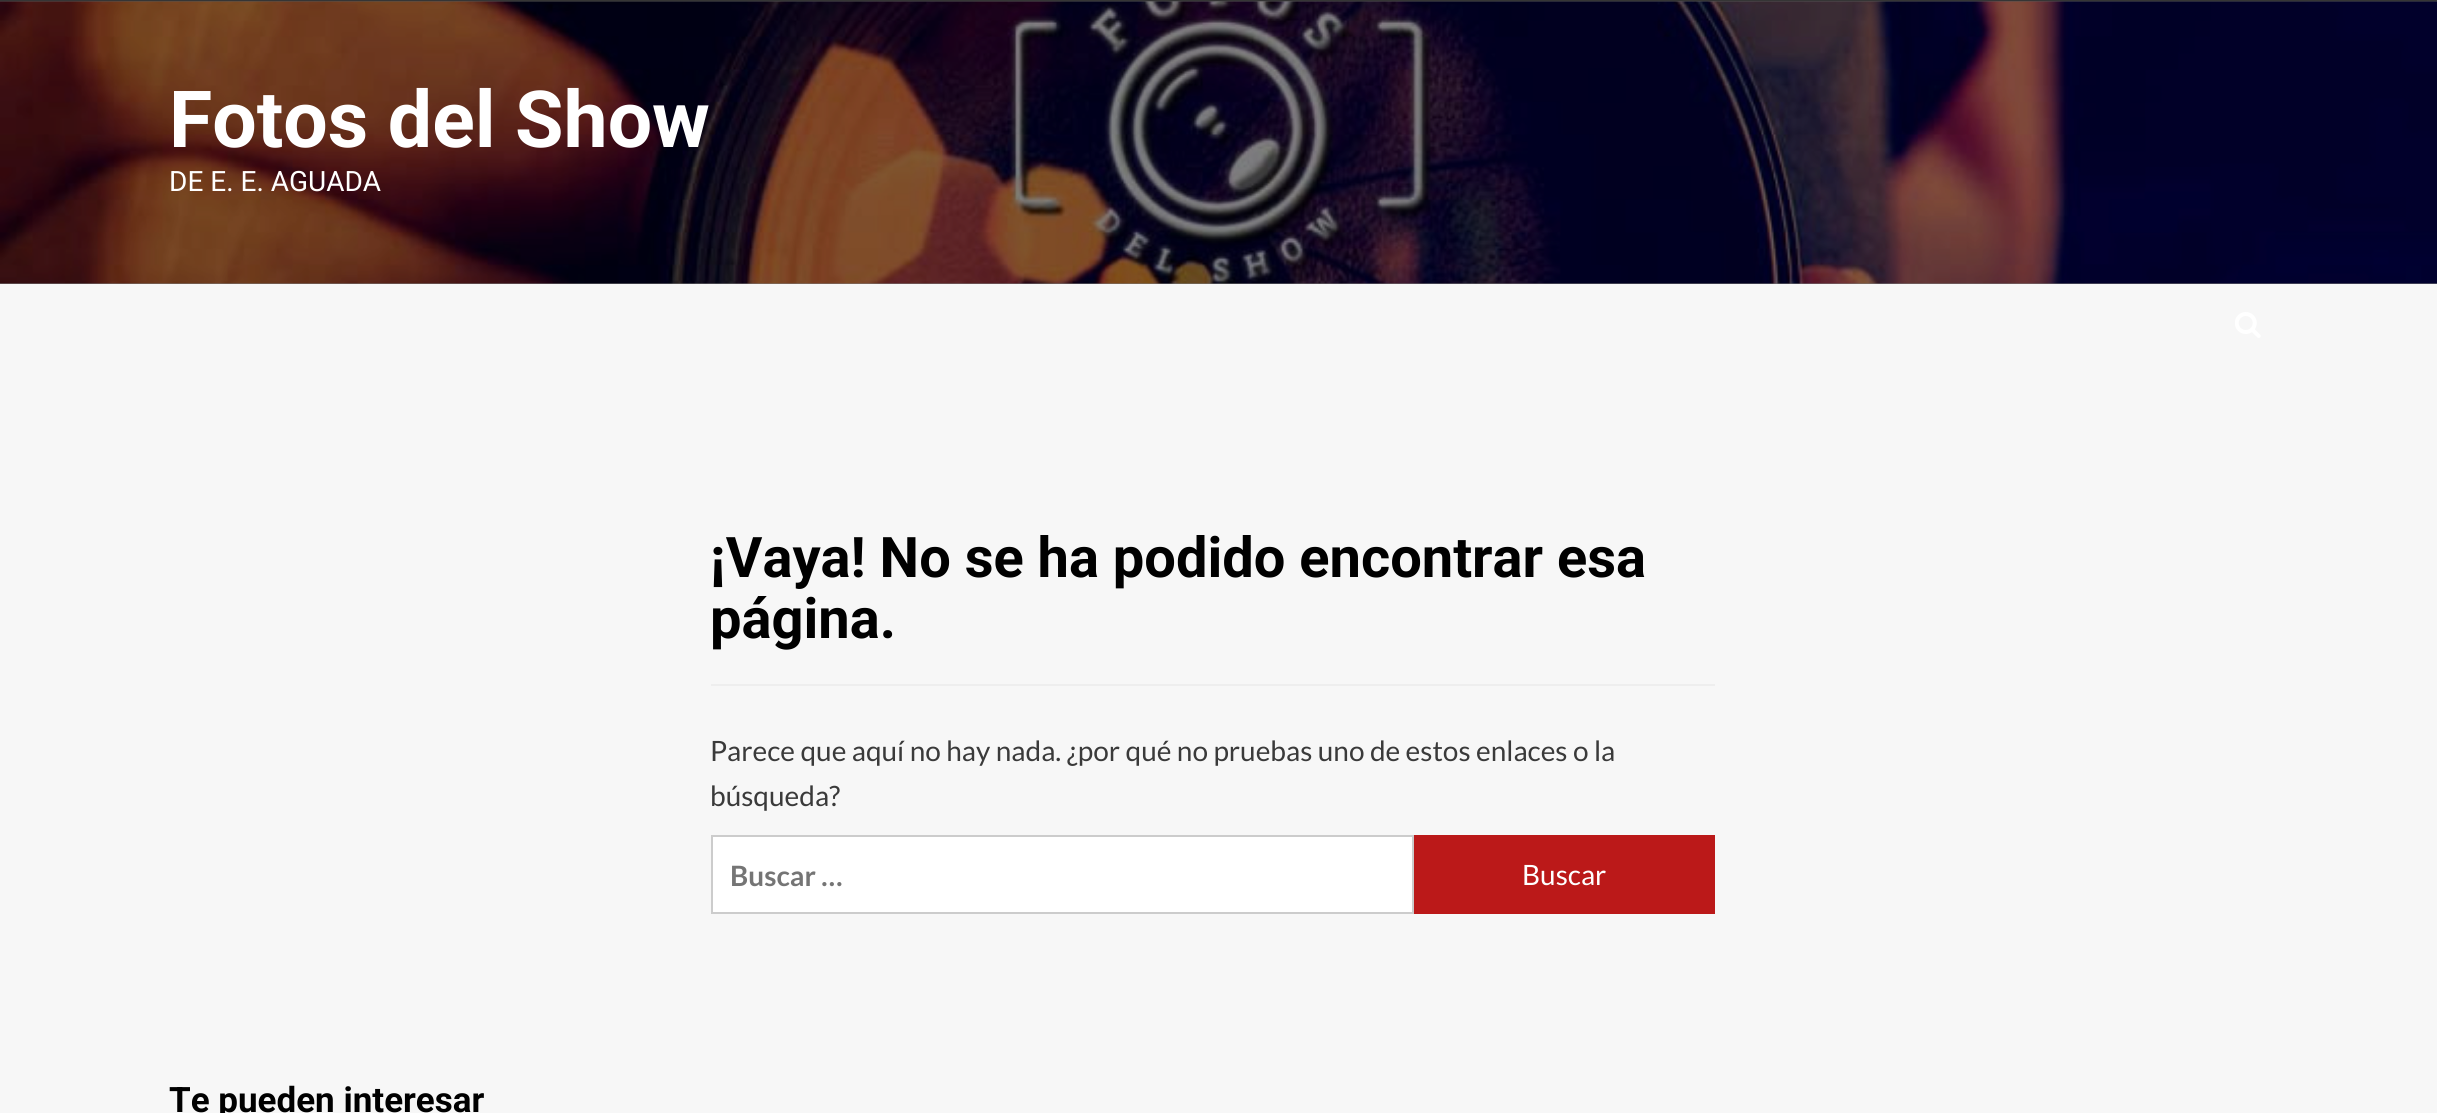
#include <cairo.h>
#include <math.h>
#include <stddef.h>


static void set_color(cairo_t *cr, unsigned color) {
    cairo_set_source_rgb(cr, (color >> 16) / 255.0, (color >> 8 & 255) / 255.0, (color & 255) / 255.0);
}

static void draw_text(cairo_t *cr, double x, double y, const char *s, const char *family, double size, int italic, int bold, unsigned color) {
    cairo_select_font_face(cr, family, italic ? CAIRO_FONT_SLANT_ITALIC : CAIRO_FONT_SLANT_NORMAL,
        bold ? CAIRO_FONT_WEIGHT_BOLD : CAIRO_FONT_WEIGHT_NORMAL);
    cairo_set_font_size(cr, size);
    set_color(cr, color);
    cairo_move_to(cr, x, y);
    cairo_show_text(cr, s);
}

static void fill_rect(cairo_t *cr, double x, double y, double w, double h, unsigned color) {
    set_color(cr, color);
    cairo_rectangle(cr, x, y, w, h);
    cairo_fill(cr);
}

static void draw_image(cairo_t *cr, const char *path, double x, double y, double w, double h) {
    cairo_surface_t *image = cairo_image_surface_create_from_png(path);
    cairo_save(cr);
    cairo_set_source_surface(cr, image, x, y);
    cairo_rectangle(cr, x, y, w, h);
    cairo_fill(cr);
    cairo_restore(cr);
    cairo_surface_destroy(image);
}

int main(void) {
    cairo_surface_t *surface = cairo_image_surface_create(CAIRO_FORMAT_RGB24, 2437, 1113);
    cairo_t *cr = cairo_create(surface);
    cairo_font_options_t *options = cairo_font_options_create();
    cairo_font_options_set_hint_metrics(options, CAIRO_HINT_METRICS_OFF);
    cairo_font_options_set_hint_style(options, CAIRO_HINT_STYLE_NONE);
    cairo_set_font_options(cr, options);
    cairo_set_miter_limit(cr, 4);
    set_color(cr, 0xF7F7F7);
    cairo_paint(cr);
    fill_rect(cr, 0, 283, 2437, 1, 0x7C7C7C);
    fill_rect(cr, 0, 0, 2437, 2, 0x353535);
    draw_image(cr, "assets/img1.png", 0, 1, 2437, 283);
    draw_text(cr, 169, 147, "Fotos del Show", "Roboto", 78.75, 0, 1, 0xFFFFFF);
    draw_text(cr, 169, 191, "DE E. E. AGUADA", "Roboto", 28, 0, 0, 0xFFFFFF);
    draw_image(cr, "assets/img2.png", 2235, 312, 26, 26);
    fill_rect(cr, 711, 684, 1004, 2, 0xEEEEEE);
    draw_text(cr, 710, 577, "¡Vaya! No se ha podido encontrar esa", "Roboto", 56, 0, 1, 0x000000);
    draw_text(cr, 710, 638, "página.", "Roboto", 56, 0, 1, 0x000000);
    draw_text(cr, 710, 761, "Parece que aquí no hay nada. ¿por qué no pruebas uno de estos enlaces o la", "Lato", 28, 0, 0, 0x3A3A3A);
    draw_text(cr, 710, 806, "búsqueda?", "Lato", 28, 0, 0, 0x3A3A3A);
    set_color(cr, 0xFFFFFF);
    cairo_rectangle(cr, 712, 836, 701, 77);
    cairo_fill_preserve(cr);
    set_color(cr, 0xCCCCCC);
    cairo_stroke(cr);
    draw_text(cr, 730, 886, "Buscar …", "Lato", 28, 0, 1, 0x757575);
    fill_rect(cr, 1414, 835, 301, 79, 0xBB1919);
    draw_text(cr, 1522, 885, "Buscar", "Lato", 28, 0, 0, 0xFFFFFF);
    draw_text(cr, 169, 1112, "Te pueden interesar", "Roboto", 35, 0, 1, 0x000000);
    cairo_surface_write_to_png(surface, "output.png");
    cairo_font_options_destroy(options);
    cairo_destroy(cr);
    cairo_surface_destroy(surface);
    return 0;
}
